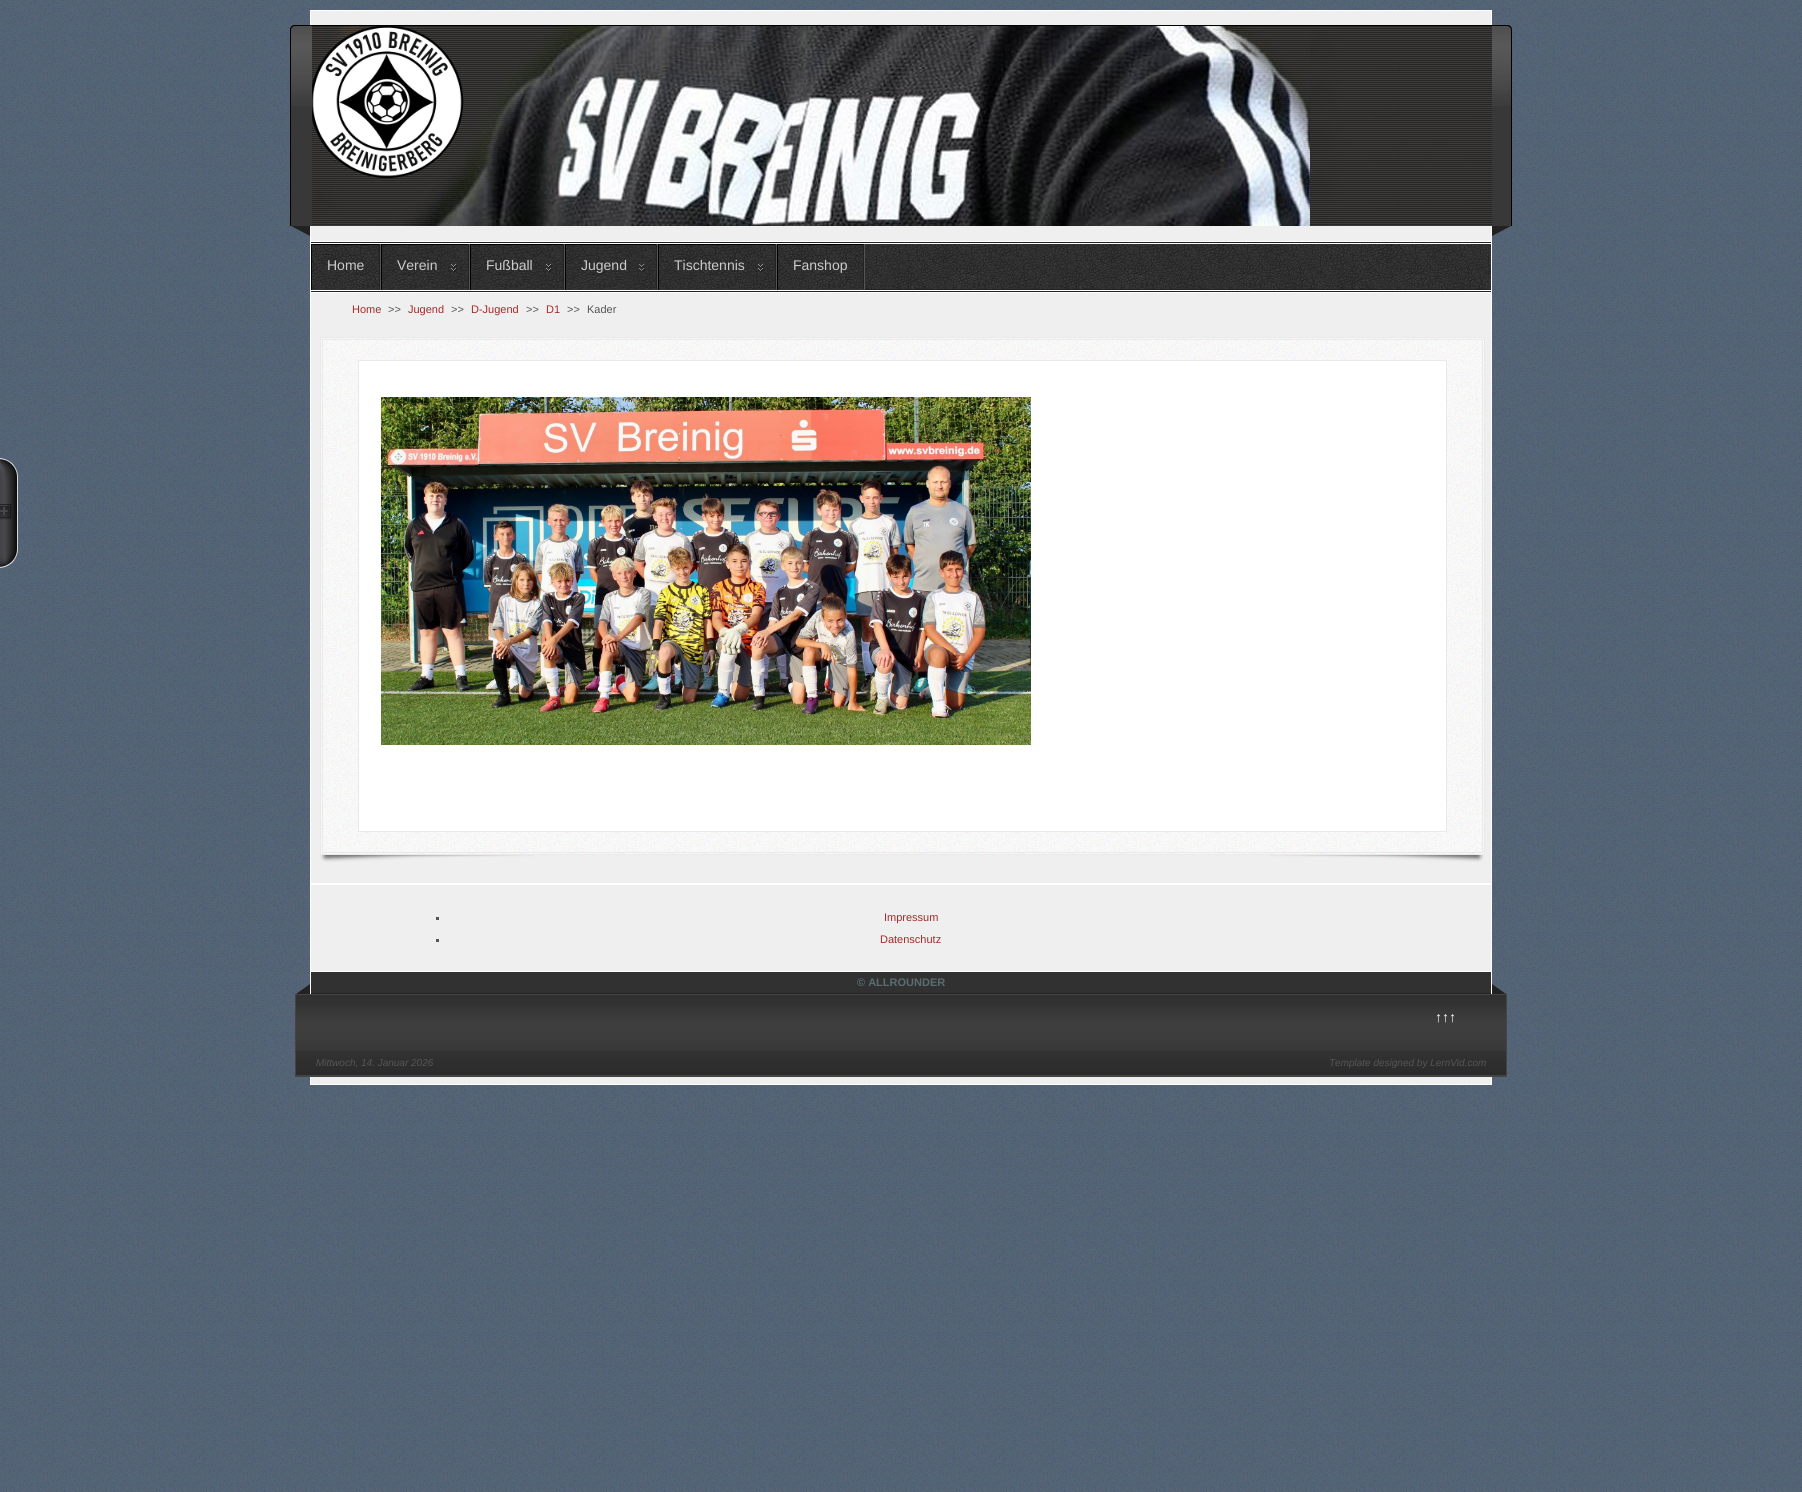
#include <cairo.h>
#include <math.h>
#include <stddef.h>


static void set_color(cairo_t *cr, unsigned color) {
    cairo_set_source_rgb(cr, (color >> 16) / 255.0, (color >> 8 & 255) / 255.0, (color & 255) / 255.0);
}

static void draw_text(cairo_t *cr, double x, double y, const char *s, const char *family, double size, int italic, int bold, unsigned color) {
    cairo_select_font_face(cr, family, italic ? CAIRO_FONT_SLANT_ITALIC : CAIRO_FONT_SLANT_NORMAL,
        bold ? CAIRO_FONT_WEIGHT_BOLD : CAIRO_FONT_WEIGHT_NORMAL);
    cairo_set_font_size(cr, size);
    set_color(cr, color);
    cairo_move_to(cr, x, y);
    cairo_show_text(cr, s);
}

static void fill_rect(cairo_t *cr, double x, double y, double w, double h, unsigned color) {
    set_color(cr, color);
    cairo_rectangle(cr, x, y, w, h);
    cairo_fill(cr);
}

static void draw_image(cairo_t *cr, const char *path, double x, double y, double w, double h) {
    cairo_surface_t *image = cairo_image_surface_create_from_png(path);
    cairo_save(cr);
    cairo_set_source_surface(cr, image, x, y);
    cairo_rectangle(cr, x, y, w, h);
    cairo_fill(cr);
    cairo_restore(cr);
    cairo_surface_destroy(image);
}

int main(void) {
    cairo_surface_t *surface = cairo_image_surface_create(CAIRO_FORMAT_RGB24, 1802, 1492);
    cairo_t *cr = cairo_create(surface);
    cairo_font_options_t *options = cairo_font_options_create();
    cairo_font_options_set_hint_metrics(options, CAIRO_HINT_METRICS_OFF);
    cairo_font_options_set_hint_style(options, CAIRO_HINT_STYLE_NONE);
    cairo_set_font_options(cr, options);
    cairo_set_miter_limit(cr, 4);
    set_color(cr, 0x45576B);
    cairo_paint(cr);
    draw_image(cr, "assets/img1.png", 0, 0, 1802, 1492);
    set_color(cr, 0xEFEFEF);
    cairo_rectangle(cr, 310.5, 10.5, 1181, 873);
    cairo_fill_preserve(cr);
    set_color(cr, 0xFFFFFF);
    cairo_set_line_width(cr, 1);
    cairo_stroke(cr);
    set_color(cr, 0x383838);
    cairo_new_path(cr);
    cairo_move_to(cr, 295, 25);
    cairo_line_to(cr, 1507, 25);
    cairo_curve_to(cr, 1510, 25, 1512, 27, 1512, 30);
    cairo_line_to(cr, 1512, 226);
    cairo_line_to(cr, 290, 226);
    cairo_line_to(cr, 290, 30);
    cairo_curve_to(cr, 290, 27, 292, 25, 295, 25);
    cairo_close_path(cr);
    cairo_fill(cr);
    draw_image(cr, "assets/img2.png", 290, 26, 1222, 80);
    set_color(cr, 0x000000);
    cairo_set_fill_rule(cr, CAIRO_FILL_RULE_EVEN_ODD);
    cairo_new_path(cr);
    cairo_move_to(cr, 295, 25);
    cairo_line_to(cr, 1507, 25);
    cairo_curve_to(cr, 1510, 25, 1512, 27, 1512, 30);
    cairo_line_to(cr, 1512, 226);
    cairo_line_to(cr, 290, 226);
    cairo_line_to(cr, 290, 30);
    cairo_curve_to(cr, 290, 27, 292, 25, 295, 25);
    cairo_close_path(cr);
    cairo_move_to(cr, 295, 26);
    cairo_line_to(cr, 1507, 26);
    cairo_curve_to(cr, 1509, 26, 1511, 28, 1511, 30);
    cairo_line_to(cr, 1511, 226);
    cairo_line_to(cr, 291, 226);
    cairo_line_to(cr, 291, 30);
    cairo_curve_to(cr, 291, 28, 293, 26, 295, 26);
    cairo_close_path(cr);
    cairo_fill(cr);
    draw_image(cr, "assets/img3.png", 312, 26, 1180, 200);
    set_color(cr, 0x222222);
    cairo_set_fill_rule(cr, CAIRO_FILL_RULE_WINDING);
    cairo_new_path(cr);
    cairo_move_to(cr, 291, 226);
    cairo_line_to(cr, 310, 226);
    cairo_line_to(cr, 310, 236);
    cairo_close_path(cr);
    cairo_fill(cr);
    cairo_new_path(cr);
    cairo_move_to(cr, 1492, 226);
    cairo_line_to(cr, 1511, 226);
    cairo_line_to(cr, 1492, 236);
    cairo_close_path(cr);
    cairo_fill(cr);
    fill_rect(cr, 311, 242, 1180, 50, 0x222222);
    draw_image(cr, "assets/img4.png", 865, 244, 626, 45);
    fill_rect(cr, 311, 241, 1180, 1, 0xFFFFFF);
    fill_rect(cr, 311, 243, 1180, 1, 0xFFFFFF);
    fill_rect(cr, 311, 290, 1180, 1, 0xFFFFFF);
    fill_rect(cr, 311, 292, 1180, 1, 0xFFFFFF);
    fill_rect(cr, 380, 244, 1, 46, 0x555555);
    draw_image(cr, "assets/img5.png", 312, 245, 67, 44);
    fill_rect(cr, 311, 244, 69, 1, 0x000000);
    fill_rect(cr, 379, 244, 1, 1, 0x222222);
    fill_rect(cr, 311, 289, 69, 1, 0x333333);
    fill_rect(cr, 311, 244, 1, 46, 0x000000);
    draw_text(cr, 327, 270, "Home", "Liberation Sans", 14, 0, 0, 0xCCCCCC);
    fill_rect(cr, 469, 244, 1, 46, 0x555555);
    draw_image(cr, "assets/img6.png", 382, 245, 86, 44);
    fill_rect(cr, 381, 244, 88, 1, 0x000000);
    fill_rect(cr, 468, 244, 1, 1, 0x222222);
    fill_rect(cr, 381, 289, 88, 1, 0x333333);
    fill_rect(cr, 381, 244, 1, 46, 0x000000);
    draw_text(cr, 397, 270, "Verein", "Liberation Sans", 14, 0, 0, 0xCCCCCC);
    fill_rect(cr, 564, 244, 1, 46, 0x555555);
    draw_image(cr, "assets/img7.png", 471, 245, 92, 44);
    fill_rect(cr, 470, 244, 94, 1, 0x000000);
    fill_rect(cr, 563, 244, 1, 1, 0x222222);
    fill_rect(cr, 470, 289, 94, 1, 0x333333);
    fill_rect(cr, 470, 244, 1, 46, 0x000000);
    draw_text(cr, 486, 270, "Fußball", "Liberation Sans", 14, 0, 0, 0xCCCCCC);
    fill_rect(cr, 657, 244, 1, 46, 0x555555);
    draw_image(cr, "assets/img8.png", 566, 245, 90, 44);
    fill_rect(cr, 565, 244, 92, 1, 0x000000);
    fill_rect(cr, 656, 244, 1, 1, 0x222222);
    fill_rect(cr, 565, 289, 92, 1, 0x333333);
    fill_rect(cr, 565, 244, 1, 46, 0x000000);
    draw_text(cr, 581, 270, "Jugend", "Liberation Sans", 14, 0, 0, 0xCCCCCC);
    fill_rect(cr, 776, 244, 1, 46, 0x555555);
    draw_image(cr, "assets/img9.png", 659, 245, 116, 44);
    fill_rect(cr, 658, 244, 118, 1, 0x000000);
    fill_rect(cr, 775, 244, 1, 1, 0x222222);
    fill_rect(cr, 658, 289, 118, 1, 0x333333);
    fill_rect(cr, 658, 244, 1, 46, 0x000000);
    draw_text(cr, 674, 270, "Tischtennis", "Liberation Sans", 14, 0, 0, 0xCCCCCC);
    fill_rect(cr, 864, 244, 1, 46, 0x555555);
    draw_image(cr, "assets/img10.png", 778, 245, 85, 44);
    fill_rect(cr, 777, 244, 87, 1, 0x000000);
    fill_rect(cr, 863, 244, 1, 1, 0x222222);
    fill_rect(cr, 777, 289, 87, 1, 0x333333);
    fill_rect(cr, 777, 244, 1, 46, 0x000000);
    draw_text(cr, 793, 270, "Fanshop", "Liberation Sans", 14, 0, 0, 0xCCCCCC);
    draw_text(cr, 352, 313, "Home", "Liberation Sans", 11, 0, 0, 0xA52A2A);
    draw_text(cr, 388, 313, ">>", "Liberation Sans", 11, 0, 0, 0x555555);
    draw_text(cr, 408, 313, "Jugend", "Liberation Sans", 11, 0, 0, 0xA52A2A);
    draw_text(cr, 451, 313, ">>", "Liberation Sans", 11, 0, 0, 0x555555);
    draw_text(cr, 471, 313, "D-Jugend", "Liberation Sans", 11, 0, 0, 0xA52A2A);
    draw_text(cr, 526, 313, ">>", "Liberation Sans", 11, 0, 0, 0x555555);
    draw_text(cr, 546, 313, "D1", "Liberation Sans", 11, 0, 0, 0xA52A2A);
    draw_text(cr, 567, 313, ">>", "Liberation Sans", 11, 0, 0, 0x555555);
    draw_text(cr, 587, 313, "Kader", "Liberation Sans", 11, 0, 0, 0x555555);
    fill_rect(cr, 321, 338, 1163, 516, 0xF9F9F9);
    draw_image(cr, "assets/img11.png", 321, 338, 1163, 516);
    cairo_rectangle(cr, 320.5, 337.5, 1164, 517);
    set_color(cr, 0xE9E9E9);
    cairo_stroke(cr);
    cairo_rectangle(cr, 322.5, 339.5, 1160, 513);
    cairo_stroke(cr);
    set_color(cr, 0xFFFFFF);
    cairo_rectangle(cr, 358.5, 360.5, 1088, 471);
    cairo_fill_preserve(cr);
    set_color(cr, 0xE9E9E9);
    cairo_stroke(cr);
    draw_image(cr, "assets/img12.png", 381, 397, 650, 348);
    draw_image(cr, "assets/img13.png", 320, 855, 214, 7);
    draw_image(cr, "assets/img14.png", 1270, 855, 214, 7);
    draw_image(cr, "assets/img15.png", 0, 458, 18, 110);
    set_color(cr, 0xEFEFEF);
    cairo_rectangle(cr, 310.5, 884.5, 1181, 200);
    cairo_fill_preserve(cr);
    set_color(cr, 0xFFFFFF);
    cairo_stroke(cr);
    fill_rect(cr, 436, 917, 3, 3, 0x555555);
    draw_text(cr, 884, 921, "Impressum", "Liberation Sans", 11, 0, 0, 0xA52A2A);
    fill_rect(cr, 436, 939, 3, 3, 0x555555);
    draw_text(cr, 880, 943, "Datenschutz", "Liberation Sans", 11, 0, 0, 0xA52A2A);
    fill_rect(cr, 311, 972, 1180, 21, 0x313131);
    fill_rect(cr, 311, 971, 1180, 1, 0xFFFFFF);
    fill_rect(cr, 311, 993, 1180, 1, 0x222222);
    draw_text(cr, 857, 986, "© ALLROUNDER", "Liberation Sans", 11, 0, 1, 0x5B6C71);
    fill_rect(cr, 296, 995, 1210, 80, 0x222222);
    draw_image(cr, "assets/img16.png", 296, 995, 1210, 80);
    fill_rect(cr, 295, 994, 1212, 1, 0x444444);
    fill_rect(cr, 1506, 994, 1, 83, 0x444444);
    fill_rect(cr, 295, 1075, 1212, 2, 0x444444);
    fill_rect(cr, 295, 994, 1, 83, 0x444444);
    set_color(cr, 0x222222);
    cairo_new_path(cr);
    cairo_move_to(cr, 310, 994);
    cairo_line_to(cr, 296, 994);
    cairo_line_to(cr, 310, 984);
    cairo_close_path(cr);
    cairo_fill(cr);
    cairo_new_path(cr);
    cairo_move_to(cr, 1506, 994);
    cairo_line_to(cr, 1492, 994);
    cairo_line_to(cr, 1492, 984);
    cairo_close_path(cr);
    cairo_fill(cr);
    draw_text(cr, 1435, 1022, "↑↑↑", "Liberation Sans", 14, 0, 0, 0xFFFFFF);
    draw_text(cr, 316, 1066, "Mittwoch, 14. Januar 2026", "Liberation Sans", 10, 1, 0, 0x555555);
    draw_text(cr, 1329, 1066, "Template designed by LernVid.com", "Liberation Sans", 10, 1, 0, 0x555555);
    cairo_surface_write_to_png(surface, "output.png");
    cairo_font_options_destroy(options);
    cairo_destroy(cr);
    cairo_surface_destroy(surface);
    return 0;
}
